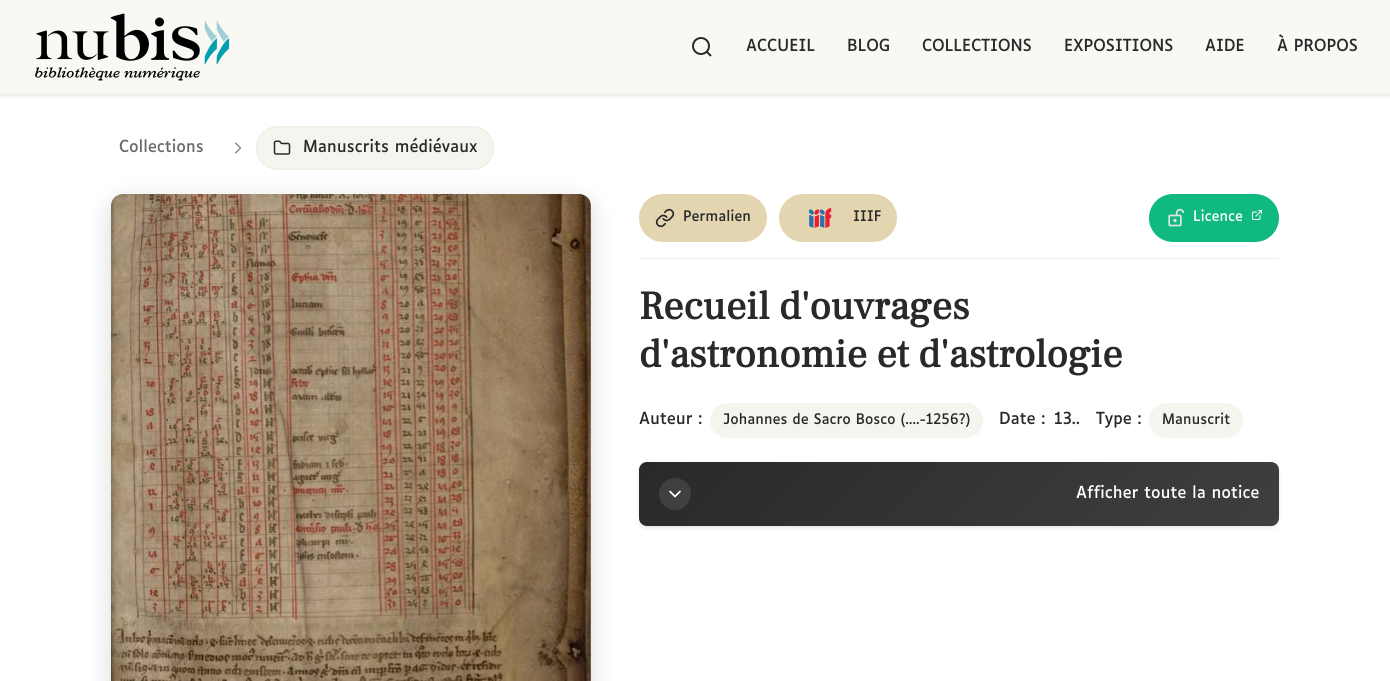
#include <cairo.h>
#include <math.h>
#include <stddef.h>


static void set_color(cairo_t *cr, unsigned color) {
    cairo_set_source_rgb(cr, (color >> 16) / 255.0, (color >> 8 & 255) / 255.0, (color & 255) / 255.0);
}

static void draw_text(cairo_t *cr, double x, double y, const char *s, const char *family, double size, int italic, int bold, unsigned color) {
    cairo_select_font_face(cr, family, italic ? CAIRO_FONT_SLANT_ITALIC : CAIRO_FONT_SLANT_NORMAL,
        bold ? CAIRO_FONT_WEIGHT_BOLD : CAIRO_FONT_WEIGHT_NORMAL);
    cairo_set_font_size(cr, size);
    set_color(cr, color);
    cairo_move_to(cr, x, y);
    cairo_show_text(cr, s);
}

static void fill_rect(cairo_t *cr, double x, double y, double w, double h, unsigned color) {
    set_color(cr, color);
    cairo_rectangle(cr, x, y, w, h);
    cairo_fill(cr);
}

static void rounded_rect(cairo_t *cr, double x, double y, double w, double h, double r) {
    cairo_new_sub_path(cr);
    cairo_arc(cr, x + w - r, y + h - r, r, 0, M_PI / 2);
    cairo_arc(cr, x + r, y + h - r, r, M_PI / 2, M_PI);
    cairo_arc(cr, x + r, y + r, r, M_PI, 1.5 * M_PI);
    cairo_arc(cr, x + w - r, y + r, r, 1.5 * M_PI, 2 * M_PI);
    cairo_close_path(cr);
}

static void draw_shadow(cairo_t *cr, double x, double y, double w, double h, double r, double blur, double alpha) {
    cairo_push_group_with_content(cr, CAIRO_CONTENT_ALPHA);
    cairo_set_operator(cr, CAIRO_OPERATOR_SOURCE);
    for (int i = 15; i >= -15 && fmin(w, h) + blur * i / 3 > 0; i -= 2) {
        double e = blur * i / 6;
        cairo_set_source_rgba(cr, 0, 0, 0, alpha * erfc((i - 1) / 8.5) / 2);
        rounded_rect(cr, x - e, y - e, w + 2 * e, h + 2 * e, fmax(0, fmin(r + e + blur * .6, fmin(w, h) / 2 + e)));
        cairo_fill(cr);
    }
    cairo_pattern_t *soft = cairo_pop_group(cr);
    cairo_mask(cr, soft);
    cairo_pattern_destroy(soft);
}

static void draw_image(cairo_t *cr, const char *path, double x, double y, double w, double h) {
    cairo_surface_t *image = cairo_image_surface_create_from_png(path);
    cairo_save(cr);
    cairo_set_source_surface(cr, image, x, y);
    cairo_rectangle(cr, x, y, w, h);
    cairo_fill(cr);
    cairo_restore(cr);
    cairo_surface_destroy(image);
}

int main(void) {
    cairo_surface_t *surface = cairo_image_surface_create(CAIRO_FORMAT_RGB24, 1390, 681);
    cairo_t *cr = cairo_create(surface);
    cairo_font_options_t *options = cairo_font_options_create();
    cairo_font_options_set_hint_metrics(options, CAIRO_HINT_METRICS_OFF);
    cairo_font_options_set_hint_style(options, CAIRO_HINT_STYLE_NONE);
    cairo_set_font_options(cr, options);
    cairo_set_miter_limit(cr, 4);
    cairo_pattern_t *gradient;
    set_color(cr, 0xFFFFFF);
    cairo_paint(cr);
    set_color(cr, 0x000000);
    draw_shadow(cr, 0, 2, 1390, 94, 0, 2, 0.1);
    fill_rect(cr, 0, 0, 1390, 94, 0xF9F8F5);
    draw_image(cr, "assets/img1.png", 35, 13, 195, 68);
    cairo_arc(cr, 701, 46, 8, 0, 2 * M_PI);
    set_color(cr, 0x282928);
    cairo_stroke(cr);
    cairo_new_path(cr);
    cairo_move_to(cr, 711, 56);
    cairo_line_to(cr, 706.5, 51.5);
    cairo_stroke(cr);
    draw_image(cr, "assets/img2.png", 746, 38, 69, 14);
    draw_image(cr, "assets/img3.png", 848, 38, 41, 14);
    draw_image(cr, "assets/img4.png", 922, 38, 109, 14);
    draw_image(cr, "assets/img5.png", 1065, 38, 108, 14);
    draw_image(cr, "assets/img6.png", 1205, 38, 39, 13);
    draw_image(cr, "assets/img7.png", 1277, 34, 80, 18);
    draw_image(cr, "assets/img8.png", 119, 138, 84, 15);
    cairo_new_path(cr);
    cairo_move_to(cr, 235.5, 153);
    cairo_line_to(cr, 240.5, 148);
    cairo_line_to(cr, 235.5, 143);
    set_color(cr, 0x787777);
    cairo_set_line_width(cr, 1.2);
    cairo_set_line_cap(cr, CAIRO_LINE_CAP_ROUND);
    cairo_set_line_join(cr, CAIRO_LINE_JOIN_ROUND);
    cairo_stroke(cr);
    set_color(cr, 0xF6F4EF);
    rounded_rect(cr, 256.5, 126.5, 237, 43, 21.5);
    cairo_fill_preserve(cr);
    set_color(cr, 0xEFECE3);
    cairo_set_line_width(cr, 1);
    cairo_set_line_cap(cr, CAIRO_LINE_CAP_BUTT);
    cairo_set_line_join(cr, CAIRO_LINE_JOIN_MITER);
    cairo_stroke(cr);
    draw_image(cr, "assets/img9.png", 273, 140, 18, 15);
    draw_image(cr, "assets/img10.png", 304, 137, 173, 16);
    set_color(cr, 0x000000);
    draw_shadow(cr, 111, 202, 480, 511, 12, 12.5, 0.15);
    draw_image(cr, "assets/img11.png", 111, 194, 480, 487);
    fill_rect(cr, 639, 258, 640, 1, 0xF1EEE6);
    set_color(cr, 0xE3D5B0);
    rounded_rect(cr, 639, 194, 128, 48, 24);
    cairo_fill(cr);
    draw_image(cr, "assets/img12.png", 655, 208, 20, 20);
    draw_image(cr, "assets/img13.png", 684, 209, 66, 13);
    rounded_rect(cr, 779, 194, 118, 48, 24);
    cairo_fill(cr);
    draw_image(cr, "assets/img14.png", 808, 208, 24, 20);
    draw_image(cr, "assets/img15.png", 854, 210, 27, 11);
    set_color(cr, 0x10B981);
    rounded_rect(cr, 1149, 194, 130, 48, 24);
    cairo_fill(cr);
    draw_image(cr, "assets/img16.png", 1168, 208, 17, 19);
    draw_image(cr, "assets/img17.png", 1194, 209, 49, 13);
    draw_image(cr, "assets/img18.png", 1252, 210, 10, 10);
    draw_text(cr, 639, 319, "Recueil d'ouvrages", "Frank Ruhl Libre", 40, 0, 1, 0x282928);
    draw_text(cr, 639, 367, "d'astronomie et d'astrologie", "Frank Ruhl Libre", 40, 0, 1, 0x282928);
    draw_image(cr, "assets/img19.png", 639, 411, 63, 14);
    set_color(cr, 0xF6F4EF);
    rounded_rect(cr, 710, 403, 273, 35, 17.5);
    cairo_fill(cr);
    draw_image(cr, "assets/img20.png", 723, 412, 247, 16);
    draw_image(cr, "assets/img21.png", 1000, 411, 45, 14);
    draw_image(cr, "assets/img22.png", 1054, 411, 26, 14);
    draw_image(cr, "assets/img23.png", 1096, 411, 45, 17);
    rounded_rect(cr, 1149, 403, 94, 35, 17.5);
    cairo_fill(cr);
    draw_image(cr, "assets/img24.png", 1163, 412, 67, 13);
    set_color(cr, 0x000000);
    draw_shadow(cr, 639, 464, 640, 64, 8, 2, 0.1);
    gradient = cairo_pattern_create_linear(783, 318, 1135, 670);
    cairo_pattern_add_color_stop_rgba(gradient, 0, 0.157, 0.161, 0.157, 1);
    cairo_pattern_add_color_stop_rgba(gradient, 1, 0.243, 0.247, 0.243, 1);
    cairo_set_source(cr, gradient);
    cairo_pattern_destroy(gradient);
    rounded_rect(cr, 639, 462, 640, 64, 8);
    cairo_fill(cr);
    set_color(cr, 0x3F403F);
    cairo_arc(cr, 675, 494, 16, 0, 2 * M_PI);
    cairo_fill(cr);
    cairo_new_path(cr);
    cairo_move_to(cr, 670, 491.5);
    cairo_line_to(cr, 675, 496.5);
    cairo_line_to(cr, 680, 491.5);
    set_color(cr, 0xFFFFFF);
    cairo_set_line_width(cr, 1.7);
    cairo_set_line_cap(cr, CAIRO_LINE_CAP_ROUND);
    cairo_set_line_join(cr, CAIRO_LINE_JOIN_ROUND);
    cairo_stroke(cr);
    draw_image(cr, "assets/img25.png", 1076, 484, 183, 15);
    cairo_surface_write_to_png(surface, "output.png");
    cairo_font_options_destroy(options);
    cairo_destroy(cr);
    cairo_surface_destroy(surface);
    return 0;
}
